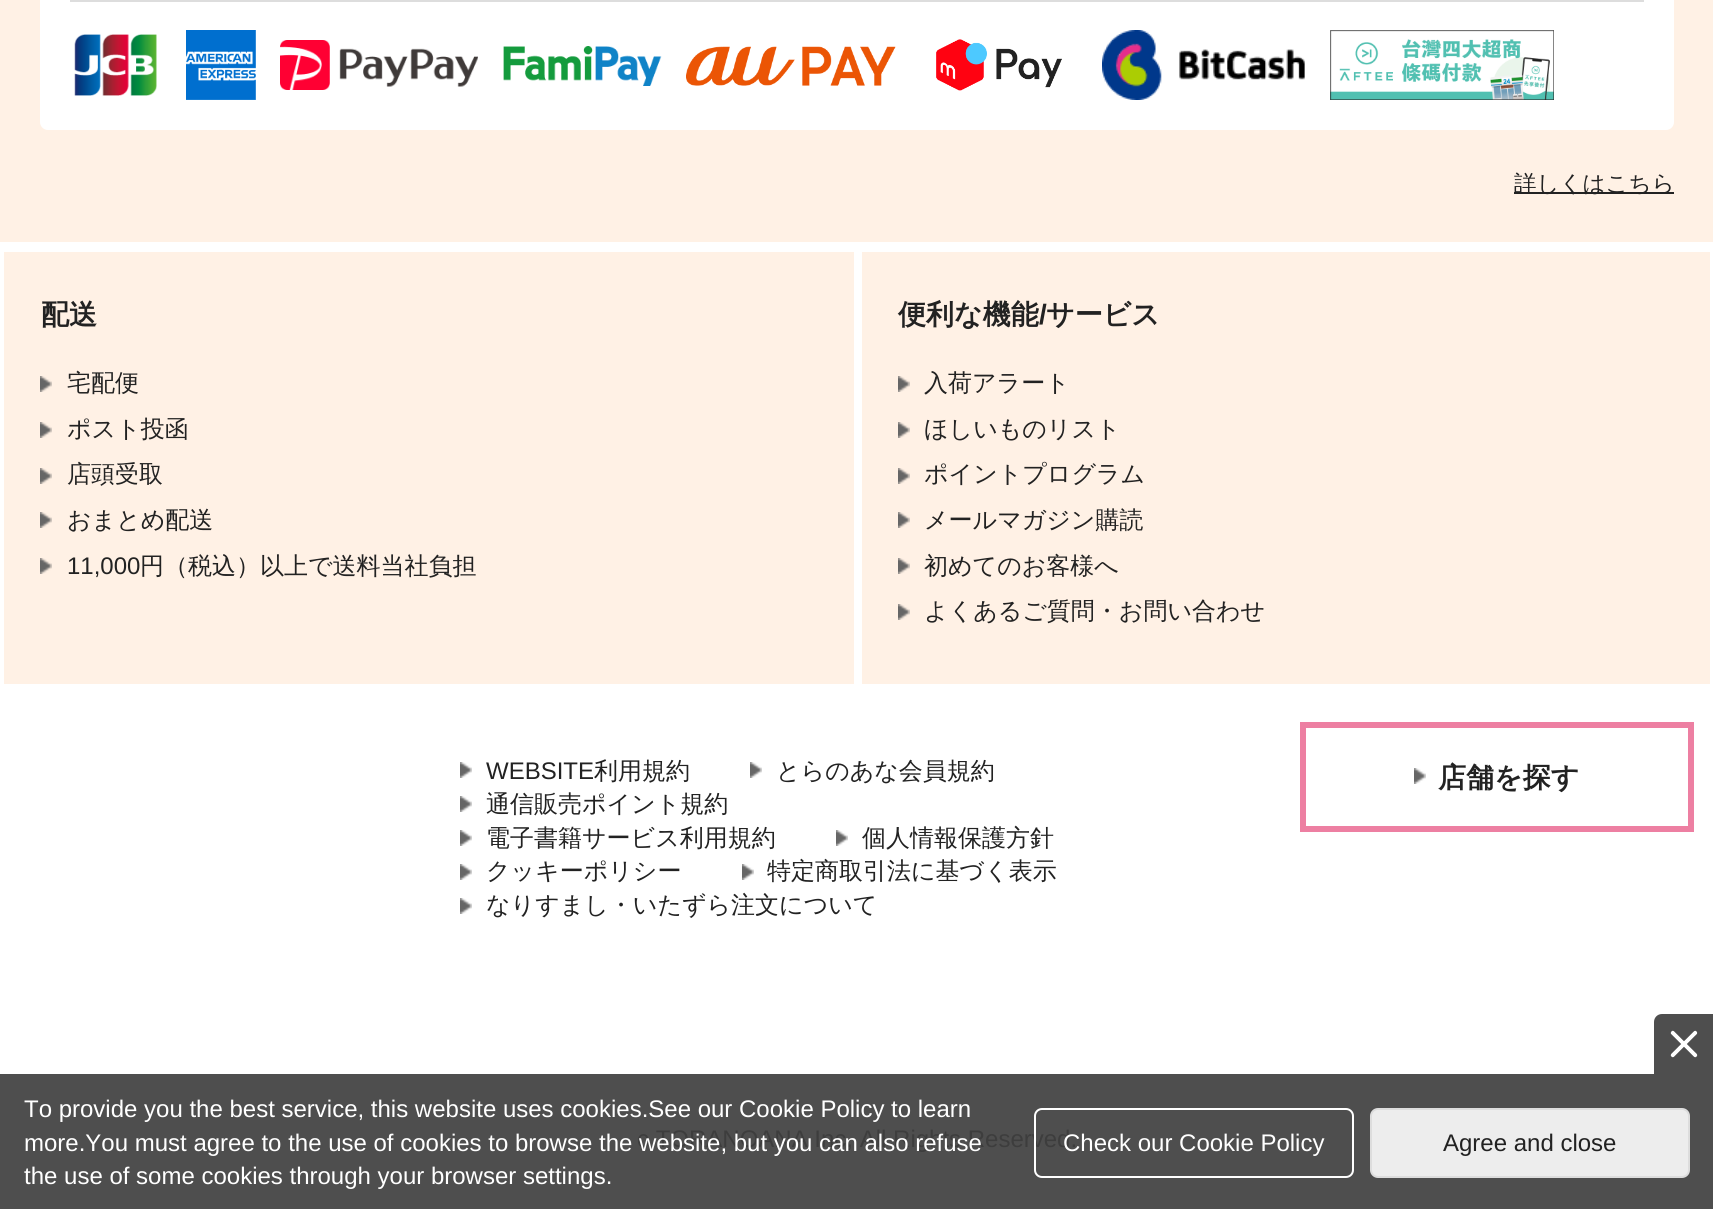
#include <cairo.h>
#include <math.h>
#include <stddef.h>


static void set_color(cairo_t *cr, unsigned color) {
    cairo_set_source_rgb(cr, (color >> 16) / 255.0, (color >> 8 & 255) / 255.0, (color & 255) / 255.0);
}

static void draw_text(cairo_t *cr, double x, double y, const char *s, const char *family, double size, int italic, int bold, unsigned color) {
    cairo_select_font_face(cr, family, italic ? CAIRO_FONT_SLANT_ITALIC : CAIRO_FONT_SLANT_NORMAL,
        bold ? CAIRO_FONT_WEIGHT_BOLD : CAIRO_FONT_WEIGHT_NORMAL);
    cairo_set_font_size(cr, size);
    set_color(cr, color);
    cairo_move_to(cr, x, y);
    cairo_show_text(cr, s);
}

static void fill_rect(cairo_t *cr, double x, double y, double w, double h, unsigned color) {
    set_color(cr, color);
    cairo_rectangle(cr, x, y, w, h);
    cairo_fill(cr);
}

static void rounded_rect(cairo_t *cr, double x, double y, double w, double h, double r) {
    cairo_new_sub_path(cr);
    cairo_arc(cr, x + w - r, y + h - r, r, 0, M_PI / 2);
    cairo_arc(cr, x + r, y + h - r, r, M_PI / 2, M_PI);
    cairo_arc(cr, x + r, y + r, r, M_PI, 1.5 * M_PI);
    cairo_arc(cr, x + w - r, y + r, r, 1.5 * M_PI, 2 * M_PI);
    cairo_close_path(cr);
}

static void draw_image(cairo_t *cr, const char *path, double x, double y, double w, double h) {
    cairo_surface_t *image = cairo_image_surface_create_from_png(path);
    cairo_save(cr);
    cairo_set_source_surface(cr, image, x, y);
    cairo_rectangle(cr, x, y, w, h);
    cairo_fill(cr);
    cairo_restore(cr);
    cairo_surface_destroy(image);
}

int main(void) {
    cairo_surface_t *surface = cairo_image_surface_create(CAIRO_FORMAT_RGB24, 1713, 1209);
    cairo_t *cr = cairo_create(surface);
    cairo_font_options_t *options = cairo_font_options_create();
    cairo_font_options_set_hint_metrics(options, CAIRO_HINT_METRICS_OFF);
    cairo_font_options_set_hint_style(options, CAIRO_HINT_STYLE_NONE);
    cairo_set_font_options(cr, options);
    cairo_set_miter_limit(cr, 4);
    set_color(cr, 0xFFFFFF);
    cairo_paint(cr);
    fill_rect(cr, 0, 1074, 1713, 135, 0x4E4E4E);
    fill_rect(cr, 0, 0, 1713, 242, 0xFFF1E5);
    set_color(cr, 0xFFFFFF);
    rounded_rect(cr, 40, -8, 1634, 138, 8);
    cairo_fill(cr);
    fill_rect(cr, 70, 0, 1574, 2, 0xDDDDDD);
    draw_image(cr, "assets/img1.png", 74, 34, 83, 62);
    draw_image(cr, "assets/img2.png", 186, 30, 70, 70);
    draw_image(cr, "assets/img3.png", 280, 40, 198, 50);
    draw_image(cr, "assets/img4.png", 503, 46, 159, 40);
    draw_image(cr, "assets/img5.png", 686, 46, 210, 40);
    draw_image(cr, "assets/img6.png", 936, 39, 126, 52);
    draw_image(cr, "assets/img7.png", 1102, 30, 203, 70);
    draw_image(cr, "assets/img8.png", 1330, 30, 224, 70);
    fill_rect(cr, 1514, 192, 160, 2, 0x222222);
    draw_text(cr, 1514, 191, "詳しくはこちら", "WenQuanYi Zen Hei Medium", 22.5, 0, 0, 0x222222);
    fill_rect(cr, 4, 252, 850, 432, 0xFFF1E5);
    draw_text(cr, 41, 324, "配送", "WenQuanYi Zen Hei", 28, 0, 1, 0x222222);
    draw_image(cr, "assets/img9.png", 40, 376, 12, 16);
    draw_text(cr, 67, 391, "宅配便", "WenQuanYi Zen Hei Medium", 24, 0, 0, 0x222222);
    draw_image(cr, "assets/img9.png", 40, 422, 12, 16);
    draw_text(cr, 67, 437, "ポスト投函", "WenQuanYi Zen Hei Medium", 24, 0, 0, 0x222222);
    draw_image(cr, "assets/img9.png", 40, 468, 12, 16);
    draw_text(cr, 67, 482, "店頭受取", "WenQuanYi Zen Hei Medium", 24, 0, 0, 0x222222);
    draw_image(cr, "assets/img9.png", 40, 512, 12, 16);
    draw_text(cr, 67, 528, "おまとめ配送", "WenQuanYi Zen Hei Medium", 24, 0, 0, 0x222222);
    draw_image(cr, "assets/img9.png", 40, 558, 12, 16);
    draw_text(cr, 67, 574, "11,000", "Liberation Sans", 24, 0, 0, 0x222222);
    draw_text(cr, 140, 574, "円（税込）以上で送料当社負担", "WenQuanYi Zen Hei Medium", 24, 0, 0, 0x222222);
    fill_rect(cr, 862, 252, 848, 432, 0xFFF1E5);
    draw_text(cr, 898, 324, "便利な機能", "WenQuanYi Zen Hei", 28, 0, 1, 0x222222);
    draw_text(cr, 1039, 324, "/", "Liberation Sans", 28, 0, 1, 0x222222);
    draw_text(cr, 1046, 324, "サービス", "WenQuanYi Zen Hei", 28, 0, 1, 0x222222);
    draw_image(cr, "assets/img9.png", 898, 376, 12, 16);
    draw_text(cr, 924, 391, "入荷アラート", "WenQuanYi Zen Hei Medium", 24, 0, 0, 0x222222);
    draw_image(cr, "assets/img9.png", 898, 422, 12, 16);
    draw_text(cr, 924, 437, "ほしいものリスト", "WenQuanYi Zen Hei Medium", 24, 0, 0, 0x222222);
    draw_image(cr, "assets/img9.png", 898, 468, 12, 16);
    draw_text(cr, 924, 482, "ポイントプログラム", "WenQuanYi Zen Hei Medium", 24, 0, 0, 0x222222);
    draw_image(cr, "assets/img9.png", 898, 512, 12, 16);
    draw_text(cr, 924, 528, "メールマガジン購読", "WenQuanYi Zen Hei Medium", 24, 0, 0, 0x222222);
    draw_image(cr, "assets/img9.png", 898, 558, 12, 16);
    draw_text(cr, 924, 574, "初めてのお客様へ", "WenQuanYi Zen Hei Medium", 24, 0, 0, 0x222222);
    draw_image(cr, "assets/img9.png", 898, 604, 12, 16);
    draw_text(cr, 924, 619, "よくあるご質問・お問い合わせ", "WenQuanYi Zen Hei Medium", 24, 0, 0, 0x222222);
    draw_image(cr, "assets/img10.png", 460, 762, 12, 16);
    draw_text(cr, 486, 779, "WEBSITE", "Liberation Sans", 24, 0, 0, 0x222222);
    draw_text(cr, 594, 779, "利用規約", "WenQuanYi Zen Hei Medium", 24, 0, 0, 0x222222);
    draw_image(cr, "assets/img10.png", 750, 762, 12, 16);
    draw_text(cr, 776, 779, "とらのあな会員規約", "WenQuanYi Zen Hei Medium", 24, 0, 0, 0x222222);
    draw_image(cr, "assets/img10.png", 460, 796, 12, 16);
    draw_text(cr, 486, 812, "通信販売ポイント規約", "WenQuanYi Zen Hei Medium", 24, 0, 0, 0x222222);
    draw_image(cr, "assets/img10.png", 460, 830, 12, 16);
    draw_text(cr, 486, 846, "電子書籍サービス利用規約", "WenQuanYi Zen Hei Medium", 24, 0, 0, 0x222222);
    draw_image(cr, "assets/img10.png", 836, 830, 12, 16);
    draw_text(cr, 862, 846, "個人情報保護方針", "WenQuanYi Zen Hei Medium", 24, 0, 0, 0x222222);
    draw_image(cr, "assets/img10.png", 460, 864, 12, 16);
    draw_text(cr, 486, 879, "クッキーポリシー", "WenQuanYi Zen Hei Medium", 24, 0, 0, 0x222222);
    draw_image(cr, "assets/img10.png", 742, 864, 12, 16);
    draw_text(cr, 767, 879, "特定商取引法に基づく表示", "WenQuanYi Zen Hei Medium", 24, 0, 0, 0x222222);
    draw_image(cr, "assets/img10.png", 460, 898, 12, 16);
    draw_text(cr, 486, 913, "なりすまし・いたずら注文について", "WenQuanYi Zen Hei Medium", 24, 0, 0, 0x222222);
    cairo_rectangle(cr, 1303, 725, 388, 104);
    set_color(cr, 0xED7FA2);
    cairo_set_line_width(cr, 6);
    cairo_stroke(cr);
    draw_image(cr, "assets/img10.png", 1414, 768, 12, 16);
    draw_text(cr, 1438, 787, "店舗を探す", "WenQuanYi Zen Hei", 28, 0, 1, 0x222222);
    draw_text(cr, 637, 1147, "c TORANOANA Inc, All Rights Reserved.", "Liberation Sans", 24, 0, 0, 0x3D3D3D);
    set_color(cr, 0x4E4E4E);
    cairo_new_path(cr);
    cairo_move_to(cr, 1662, 1014);
    cairo_line_to(cr, 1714, 1014);
    cairo_line_to(cr, 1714, 1074);
    cairo_line_to(cr, 1654, 1074);
    cairo_line_to(cr, 1654, 1022);
    cairo_curve_to(cr, 1654, 1017.5, 1657.5, 1014, 1662, 1014);
    cairo_close_path(cr);
    cairo_fill(cr);
    draw_image(cr, "assets/img11.png", 1670, 1030, 28, 28);
    draw_text(cr, 24, 1117, "To provide you the best service, this website uses cookies.See our Cookie Policy to learn", "Liberation Sans", 24, 0, 0, 0xFFFFFF);
    draw_text(cr, 24, 1151, "more.You must agree to the use of cookies to browse the website, but you can also refuse", "Liberation Sans", 24, 0, 0, 0xFFFFFF);
    draw_text(cr, 24, 1184, "the use of some cookies through your browser settings.", "Liberation Sans", 24, 0, 0, 0xFFFFFF);
    rounded_rect(cr, 1035, 1109, 318, 68, 7);
    cairo_set_line_width(cr, 2);
    cairo_stroke(cr);
    draw_text(cr, 1063, 1151, "Check our Cookie Policy", "Liberation Sans", 24, 0, 0, 0xFFFFFF);
    set_color(cr, 0xEDEDED);
    rounded_rect(cr, 1371, 1109, 318, 68, 7);
    cairo_fill_preserve(cr);
    set_color(cr, 0xDDDDDD);
    cairo_stroke(cr);
    draw_text(cr, 1443, 1151, "Agree and close", "Liberation Sans", 24, 0, 0, 0x222222);
    cairo_surface_write_to_png(surface, "output.png");
    cairo_font_options_destroy(options);
    cairo_destroy(cr);
    cairo_surface_destroy(surface);
    return 0;
}
